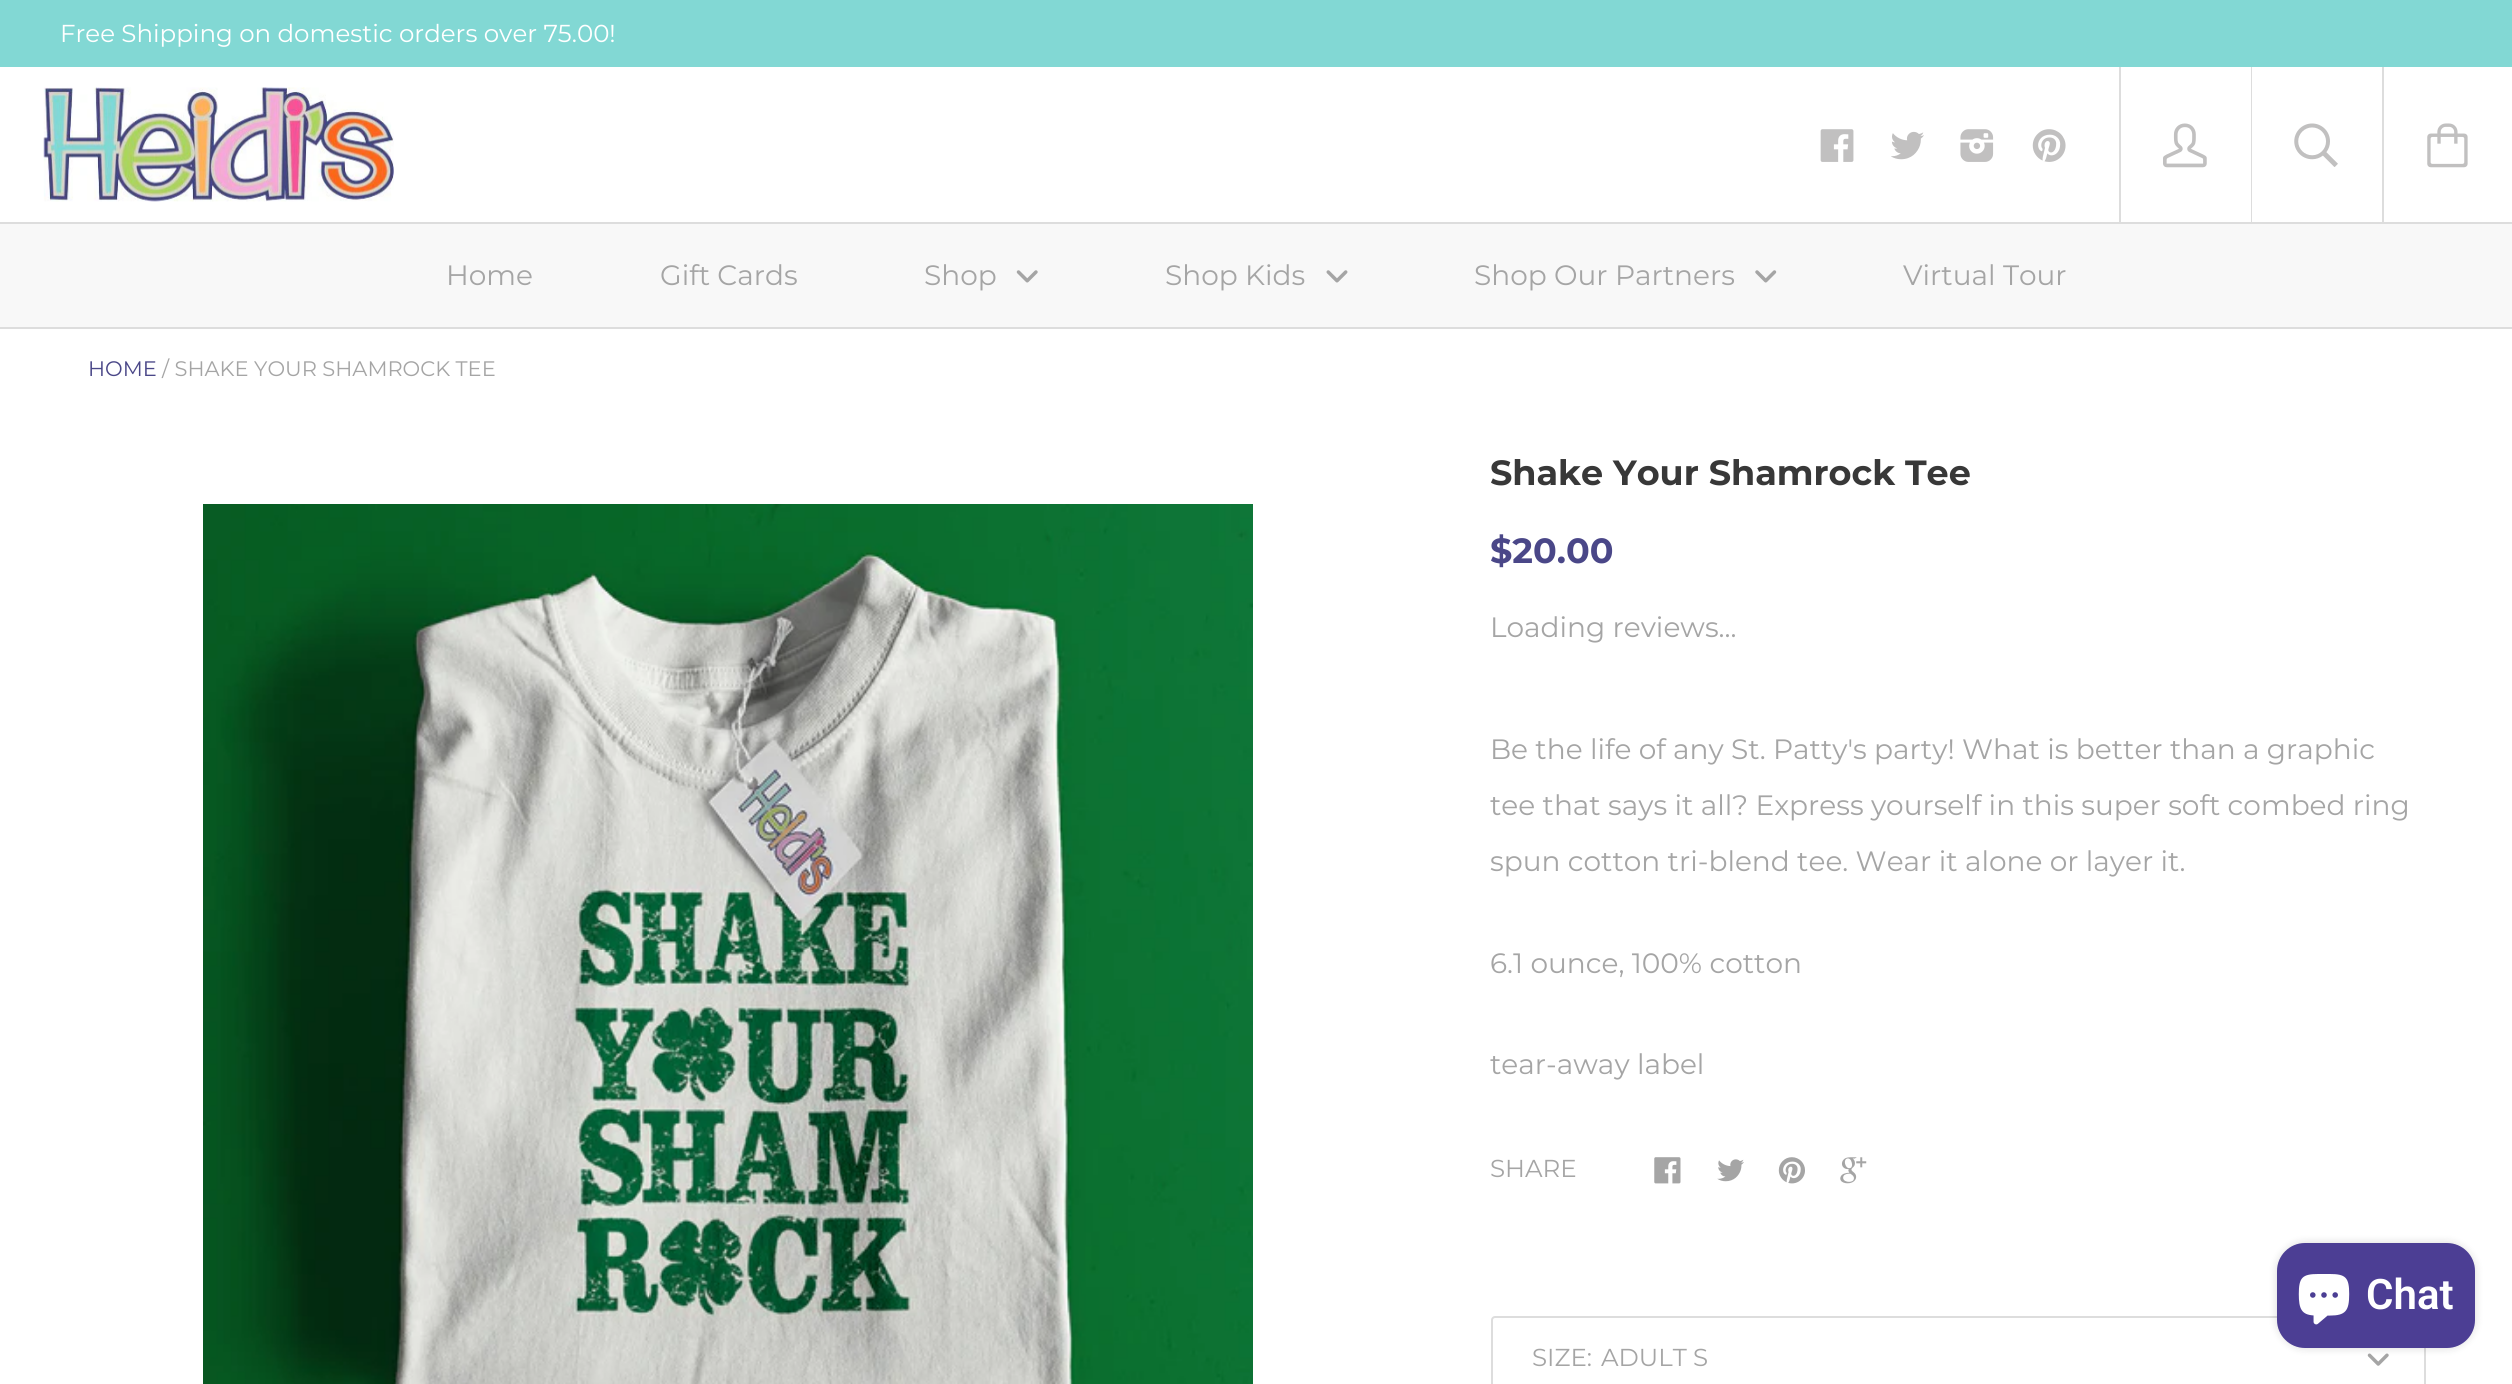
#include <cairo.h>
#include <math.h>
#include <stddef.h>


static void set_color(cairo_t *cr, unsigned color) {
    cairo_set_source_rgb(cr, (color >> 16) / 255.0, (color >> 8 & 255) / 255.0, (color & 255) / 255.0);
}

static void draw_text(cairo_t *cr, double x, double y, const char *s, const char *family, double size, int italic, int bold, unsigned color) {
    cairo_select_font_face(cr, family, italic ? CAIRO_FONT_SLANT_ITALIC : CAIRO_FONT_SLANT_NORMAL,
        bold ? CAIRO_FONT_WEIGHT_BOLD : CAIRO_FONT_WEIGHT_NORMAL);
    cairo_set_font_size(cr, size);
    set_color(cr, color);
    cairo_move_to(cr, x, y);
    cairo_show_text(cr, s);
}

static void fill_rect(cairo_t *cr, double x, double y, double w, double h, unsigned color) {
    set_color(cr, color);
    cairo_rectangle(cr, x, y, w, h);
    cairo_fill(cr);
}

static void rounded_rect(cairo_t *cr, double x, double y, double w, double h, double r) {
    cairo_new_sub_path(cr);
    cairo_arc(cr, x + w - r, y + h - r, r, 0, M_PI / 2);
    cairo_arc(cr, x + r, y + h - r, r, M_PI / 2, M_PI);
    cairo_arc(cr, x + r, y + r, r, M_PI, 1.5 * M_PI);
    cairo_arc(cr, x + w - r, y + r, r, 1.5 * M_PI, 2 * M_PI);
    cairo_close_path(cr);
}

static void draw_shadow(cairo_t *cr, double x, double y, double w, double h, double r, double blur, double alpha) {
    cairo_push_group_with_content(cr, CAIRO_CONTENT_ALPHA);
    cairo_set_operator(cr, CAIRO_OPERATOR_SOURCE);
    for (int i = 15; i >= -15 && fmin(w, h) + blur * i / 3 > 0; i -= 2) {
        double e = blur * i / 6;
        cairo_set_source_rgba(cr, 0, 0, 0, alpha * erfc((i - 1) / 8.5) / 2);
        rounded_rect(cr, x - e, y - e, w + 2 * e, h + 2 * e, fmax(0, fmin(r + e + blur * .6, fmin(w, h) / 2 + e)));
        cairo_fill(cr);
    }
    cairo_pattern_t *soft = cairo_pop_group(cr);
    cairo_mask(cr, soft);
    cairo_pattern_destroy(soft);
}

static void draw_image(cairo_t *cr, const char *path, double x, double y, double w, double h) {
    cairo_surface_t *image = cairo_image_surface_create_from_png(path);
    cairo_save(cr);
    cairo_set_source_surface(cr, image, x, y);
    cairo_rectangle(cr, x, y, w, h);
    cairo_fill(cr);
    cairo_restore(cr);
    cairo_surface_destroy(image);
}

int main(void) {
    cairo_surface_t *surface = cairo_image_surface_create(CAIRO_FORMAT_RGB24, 2512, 1384);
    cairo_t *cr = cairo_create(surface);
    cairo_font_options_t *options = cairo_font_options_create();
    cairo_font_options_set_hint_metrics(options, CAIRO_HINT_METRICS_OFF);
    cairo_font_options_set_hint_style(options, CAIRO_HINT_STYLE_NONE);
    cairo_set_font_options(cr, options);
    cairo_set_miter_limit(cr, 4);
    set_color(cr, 0xFFFFFF);
    cairo_paint(cr);
    fill_rect(cr, 0, 0, 2512, 67, 0x82D8D4);
    draw_text(cr, 60, 42, "Free Shipping on domestic orders over 75.00!", "Montserrat", 24.5, 0, 0, 0xFFFFFF);
    fill_rect(cr, 0, 327, 2512, 2, 0xDDDDDD);
    draw_image(cr, "assets/img1.png", 43, 87, 351, 115);
    draw_image(cr, "assets/img2.png", 1820, 129, 34, 33);
    draw_image(cr, "assets/img3.png", 1891, 131, 33, 29);
    draw_image(cr, "assets/img4.png", 1960, 129, 34, 33);
    draw_image(cr, "assets/img5.png", 2032, 129, 34, 33);
    fill_rect(cr, 2119, 67, 2, 155, 0xDDDDDD);
    draw_image(cr, "assets/img6.png", 2163, 123, 44, 45);
    fill_rect(cr, 2251, 67, 1, 155, 0xDDDDDD);
    draw_image(cr, "assets/img7.png", 2294, 123, 44, 44);
    fill_rect(cr, 2382, 67, 2, 155, 0xDDDDDD);
    draw_image(cr, "assets/img8.png", 2427, 123, 41, 45);
    fill_rect(cr, 0, 224, 2512, 103, 0xF8F8F8);
    fill_rect(cr, 0, 222, 2512, 2, 0xDDDDDD);
    draw_text(cr, 446, 285, "Home", "Montserrat", 28, 0, 0, 0xA5A5A5);
    draw_text(cr, 660, 285, "Gift Cards", "Montserrat", 28, 0, 0, 0xA5A5A5);
    draw_text(cr, 924, 285, "Shop", "Montserrat", 28, 0, 0, 0xA5A5A5);
    draw_image(cr, "assets/img9.png", 1016, 270, 22, 13);
    draw_text(cr, 1165, 285, "Shop Kids", "Montserrat", 28, 0, 0, 0xA5A5A5);
    draw_image(cr, "assets/img10.png", 1326, 270, 22, 13);
    draw_text(cr, 1474, 285, "Shop Our Partners", "Montserrat", 28, 0, 0, 0xA5A5A5);
    draw_image(cr, "assets/img11.png", 1755, 270, 22, 13);
    draw_text(cr, 1903, 285, "Virtual Tour", "Montserrat", 28, 0, 0, 0xA5A5A5);
    draw_text(cr, 88, 376, "HOME", "Montserrat", 21, 0, 0, 0x4A4788);
    draw_text(cr, 162, 376, "/ SHAKE YOUR SHAMROCK TEE", "Montserrat", 21, 0, 0, 0xA5A5A5);
    draw_image(cr, "assets/img12.png", 203, 504, 1050, 880);
    draw_text(cr, 1490, 485, "Shake Your Shamrock Tee", "Montserrat", 35, 0, 1, 0x383838);
    draw_text(cr, 1490, 563, "$20.00", "Montserrat", 35, 0, 1, 0x4A4788);
    draw_text(cr, 1490, 637, "Loading reviews...", "Montserrat", 28, 0, 0, 0xA5A5A5);
    draw_text(cr, 1490, 759, "Be the life of any St. Patty's party! What is better than a graphic", "Montserrat", 28, 0, 0, 0xA5A5A5);
    draw_text(cr, 1490, 815, "tee that says it all? Express yourself in this super soft combed ring", "Montserrat", 28, 0, 0, 0xA5A5A5);
    draw_text(cr, 1490, 871, "spun cotton tri-blend tee. Wear it alone or layer it.", "Montserrat", 28, 0, 0, 0xA5A5A5);
    draw_text(cr, 1490, 973, "6.1 ounce, 100% cotton", "Montserrat", 28, 0, 0, 0xA5A5A5);
    draw_text(cr, 1490, 1074, "tear-away label", "Montserrat", 28, 0, 0, 0xA5A5A5);
    draw_text(cr, 1490, 1177, "SHARE", "Montserrat", 24.5, 0, 0, 0xA5A5A5);
    draw_image(cr, "assets/img13.png", 1654, 1157, 27, 27);
    draw_image(cr, "assets/img14.png", 1717, 1159, 27, 23);
    draw_image(cr, "assets/img15.png", 1778, 1157, 27, 27);
    draw_image(cr, "assets/img16.png", 1840, 1157, 27, 27);
    rounded_rect(cr, 1492, 1317, 933, 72, 3);
    set_color(cr, 0xDDDDDD);
    cairo_stroke(cr);
    draw_text(cr, 1532, 1366, "SIZE:", "Montserrat", 24.5, 0, 0, 0xA5A5A5);
    draw_text(cr, 1601, 1366, "ADULT S", "Montserrat", 24.5, 0, 0, 0xA5A5A5);
    draw_image(cr, "assets/img17.png", 2367, 1353, 22, 13);
    set_color(cr, 0x000000);
    draw_shadow(cr, 2277, 1243, 198, 105, 28, 4.5, 0.15);
    set_color(cr, 0x4C3E94);
    rounded_rect(cr, 2277, 1243, 198, 105, 28);
    cairo_fill(cr);
    draw_image(cr, "assets/img18.png", 2298, 1274, 52, 51);
    draw_text(cr, 2366, 1309, "Chat", "Roboto SemiBold", 42, 0, 0, 0xFFFFFF);
    cairo_surface_write_to_png(surface, "output.png");
    cairo_font_options_destroy(options);
    cairo_destroy(cr);
    cairo_surface_destroy(surface);
    return 0;
}
